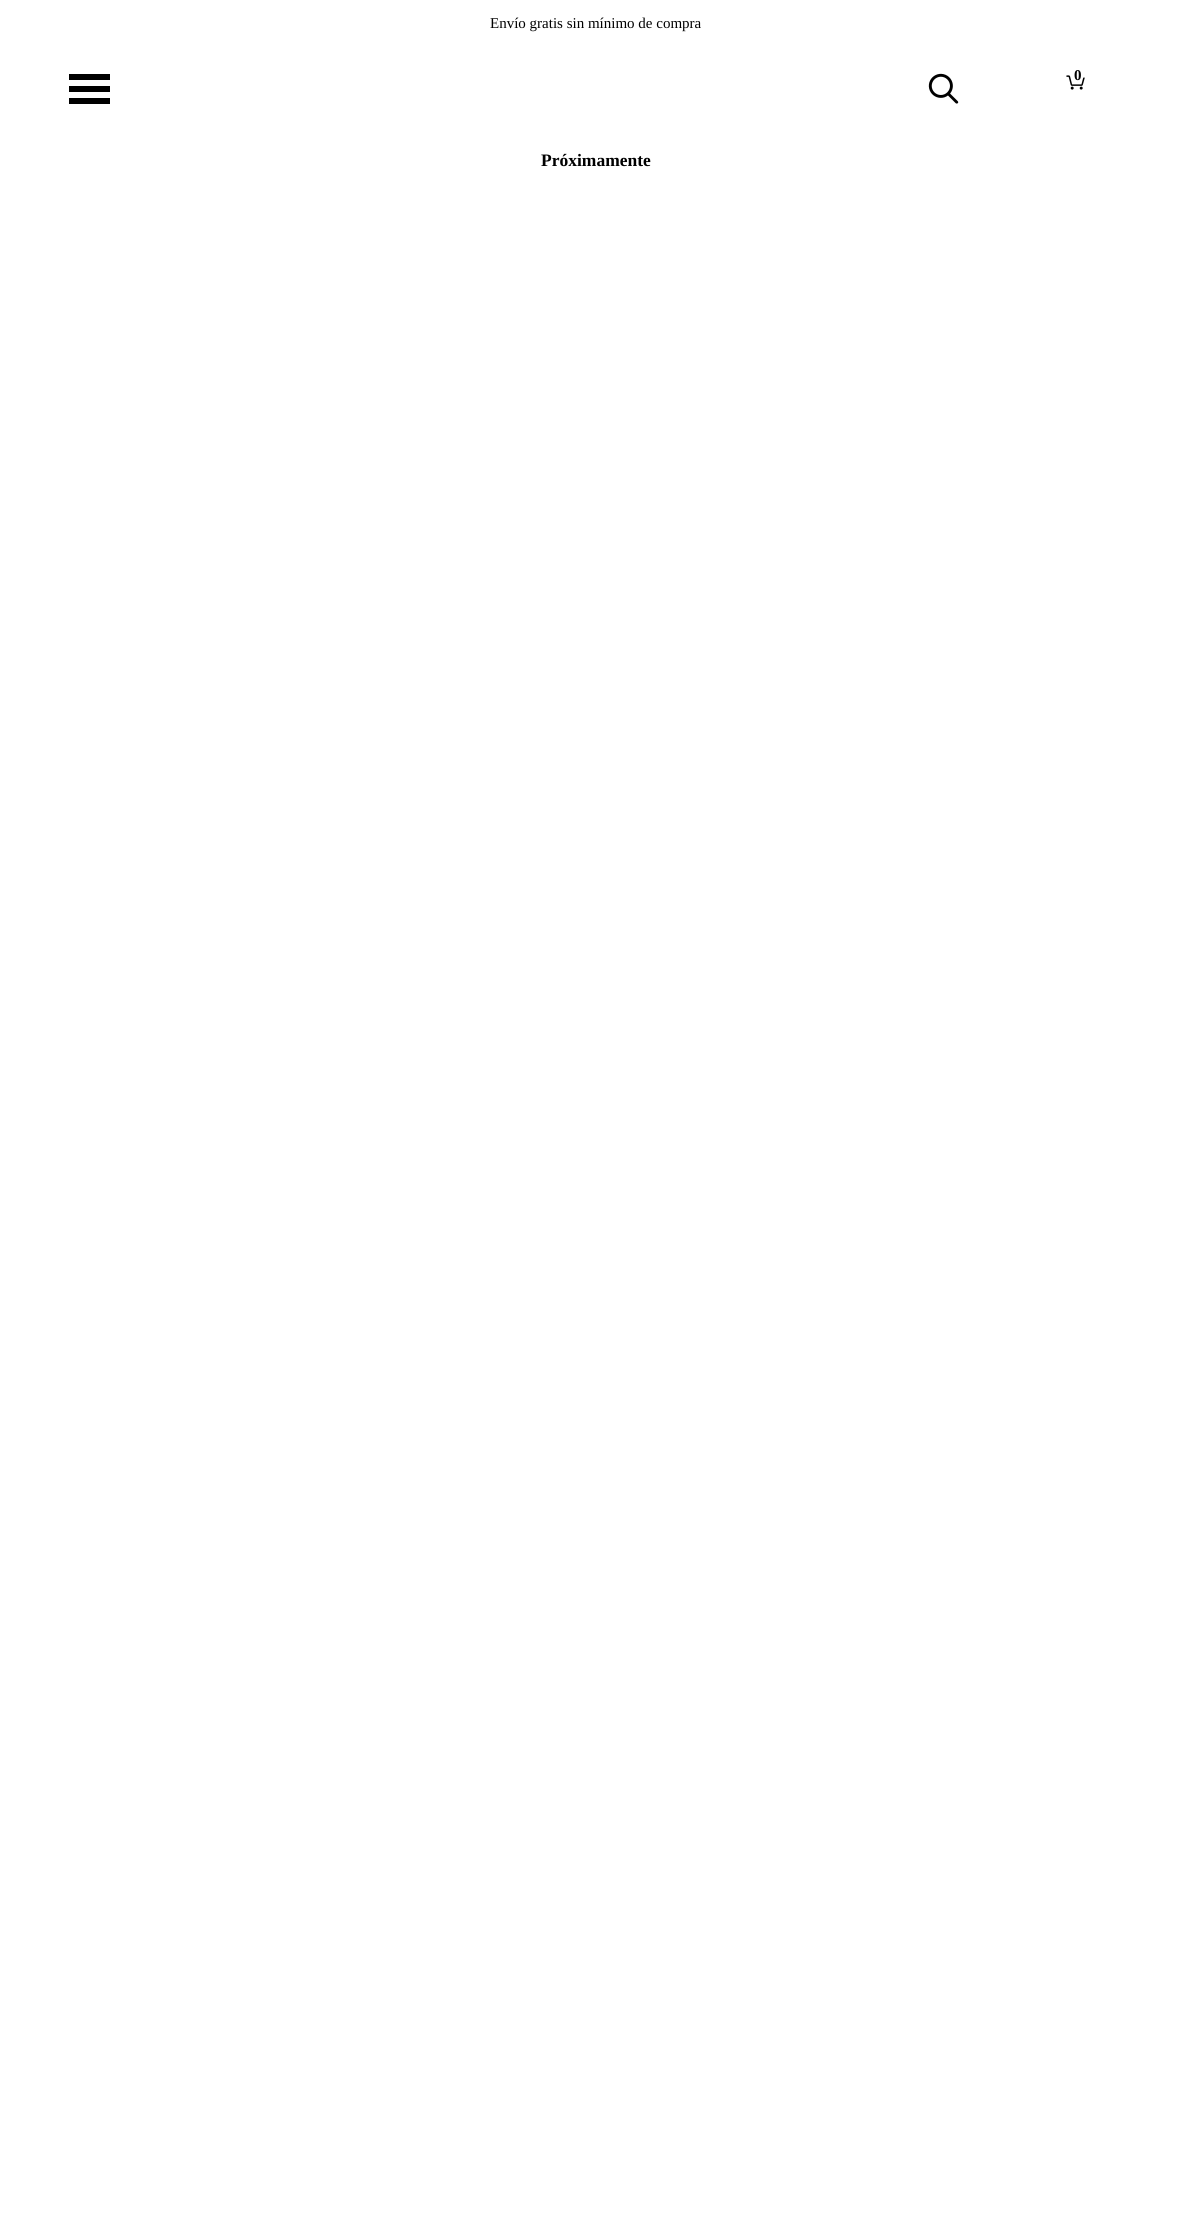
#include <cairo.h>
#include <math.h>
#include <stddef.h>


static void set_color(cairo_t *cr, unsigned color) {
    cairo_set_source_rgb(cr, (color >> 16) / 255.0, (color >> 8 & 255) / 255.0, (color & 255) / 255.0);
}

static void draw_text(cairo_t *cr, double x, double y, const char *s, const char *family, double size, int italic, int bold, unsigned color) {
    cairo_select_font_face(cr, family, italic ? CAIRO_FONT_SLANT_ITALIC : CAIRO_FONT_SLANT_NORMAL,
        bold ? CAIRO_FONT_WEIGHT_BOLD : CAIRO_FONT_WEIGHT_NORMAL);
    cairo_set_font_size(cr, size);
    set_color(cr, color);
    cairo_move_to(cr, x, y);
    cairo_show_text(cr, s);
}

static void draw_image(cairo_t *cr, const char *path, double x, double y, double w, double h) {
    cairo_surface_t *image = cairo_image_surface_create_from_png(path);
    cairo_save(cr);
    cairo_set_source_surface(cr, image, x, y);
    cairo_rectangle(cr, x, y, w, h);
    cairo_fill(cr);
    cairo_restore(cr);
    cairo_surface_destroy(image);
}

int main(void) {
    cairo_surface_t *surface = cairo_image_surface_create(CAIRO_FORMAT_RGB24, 1191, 2219);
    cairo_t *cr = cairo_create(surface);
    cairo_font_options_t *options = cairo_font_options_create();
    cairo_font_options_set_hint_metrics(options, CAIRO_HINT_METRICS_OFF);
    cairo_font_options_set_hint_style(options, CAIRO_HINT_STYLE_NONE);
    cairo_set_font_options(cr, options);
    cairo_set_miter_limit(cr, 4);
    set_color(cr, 0xFFFFFF);
    cairo_paint(cr);
    draw_text(cr, 490, 28, "Envío gratis sin mínimo de compra", "Liberation Serif", 15, 0, 0, 0x000000);
    cairo_new_path(cr);
    cairo_move_to(cr, 69, 104);
    cairo_line_to(cr, 110, 104);
    cairo_line_to(cr, 110, 98);
    cairo_line_to(cr, 69, 98);
    cairo_close_path(cr);
    cairo_move_to(cr, 69, 74);
    cairo_line_to(cr, 69, 80);
    cairo_line_to(cr, 110, 80);
    cairo_line_to(cr, 110, 74);
    cairo_close_path(cr);
    cairo_move_to(cr, 69, 92);
    cairo_line_to(cr, 110, 92);
    cairo_line_to(cr, 110, 86);
    cairo_line_to(cr, 69, 86);
    cairo_close_path(cr);
    cairo_fill(cr);
    draw_image(cr, "assets/img1.png", 928, 73, 31, 31);
    draw_image(cr, "assets/img2.png", 1066, 75, 19, 15);
    draw_text(cr, 1074, 80, "0", "Liberation Serif", 15, 0, 1, 0x000000);
    draw_text(cr, 541, 166, "Próximamente", "Liberation Serif", 17.5, 0, 1, 0x000000);
    cairo_surface_write_to_png(surface, "output.png");
    cairo_font_options_destroy(options);
    cairo_destroy(cr);
    cairo_surface_destroy(surface);
    return 0;
}
